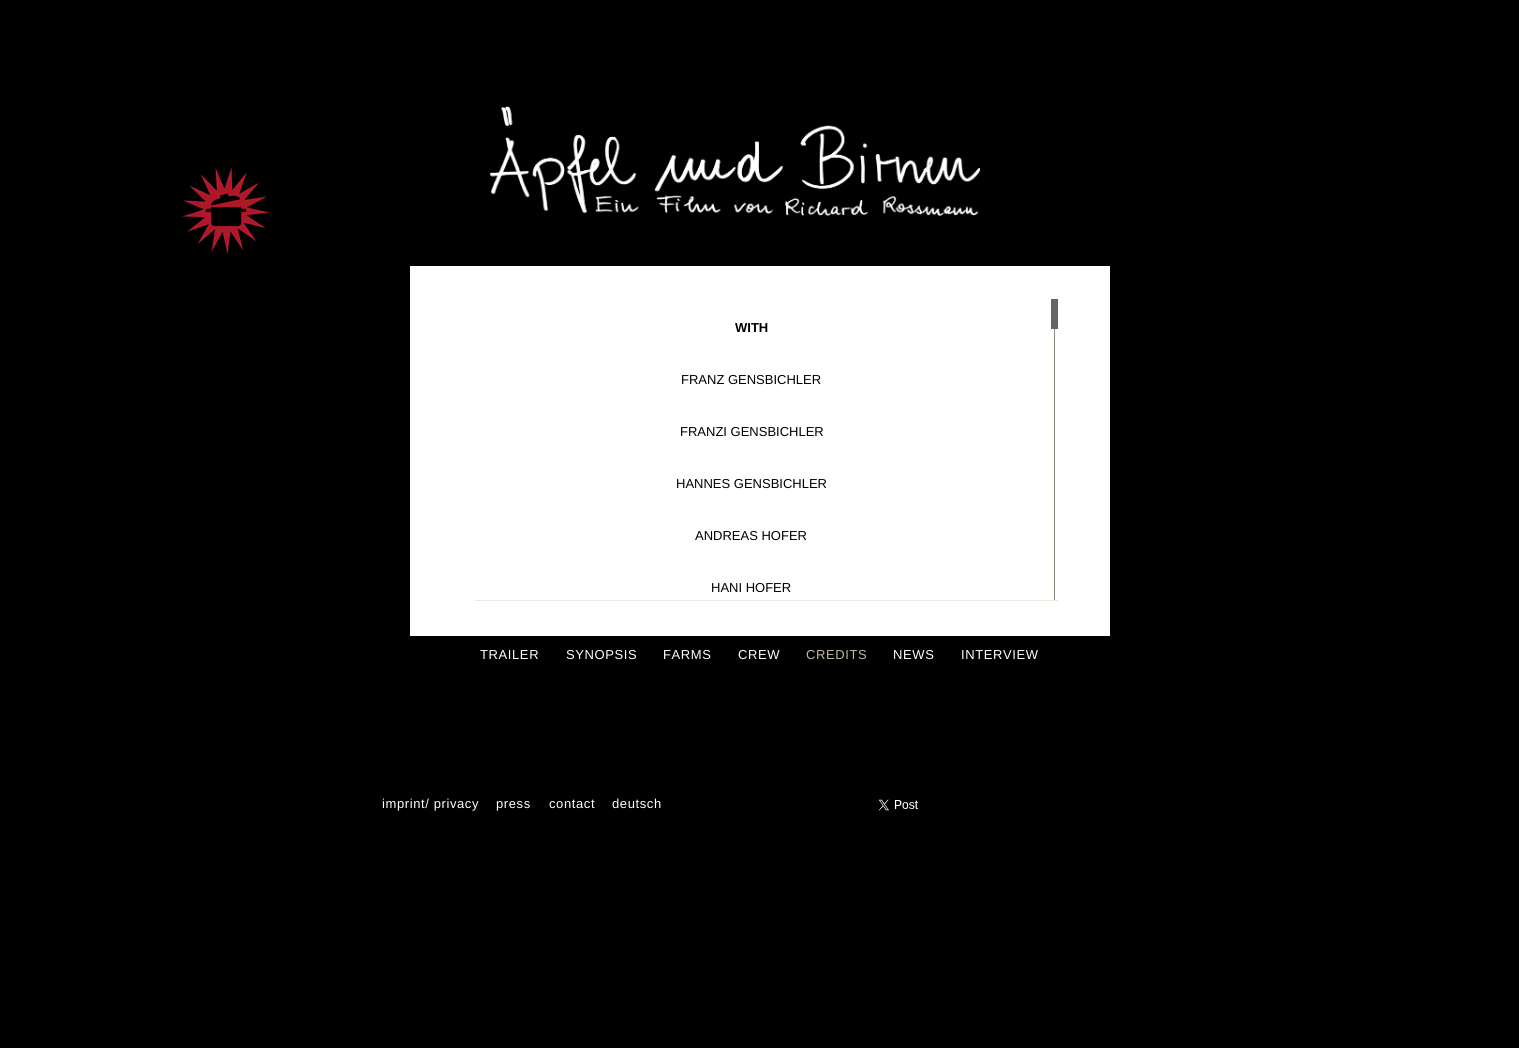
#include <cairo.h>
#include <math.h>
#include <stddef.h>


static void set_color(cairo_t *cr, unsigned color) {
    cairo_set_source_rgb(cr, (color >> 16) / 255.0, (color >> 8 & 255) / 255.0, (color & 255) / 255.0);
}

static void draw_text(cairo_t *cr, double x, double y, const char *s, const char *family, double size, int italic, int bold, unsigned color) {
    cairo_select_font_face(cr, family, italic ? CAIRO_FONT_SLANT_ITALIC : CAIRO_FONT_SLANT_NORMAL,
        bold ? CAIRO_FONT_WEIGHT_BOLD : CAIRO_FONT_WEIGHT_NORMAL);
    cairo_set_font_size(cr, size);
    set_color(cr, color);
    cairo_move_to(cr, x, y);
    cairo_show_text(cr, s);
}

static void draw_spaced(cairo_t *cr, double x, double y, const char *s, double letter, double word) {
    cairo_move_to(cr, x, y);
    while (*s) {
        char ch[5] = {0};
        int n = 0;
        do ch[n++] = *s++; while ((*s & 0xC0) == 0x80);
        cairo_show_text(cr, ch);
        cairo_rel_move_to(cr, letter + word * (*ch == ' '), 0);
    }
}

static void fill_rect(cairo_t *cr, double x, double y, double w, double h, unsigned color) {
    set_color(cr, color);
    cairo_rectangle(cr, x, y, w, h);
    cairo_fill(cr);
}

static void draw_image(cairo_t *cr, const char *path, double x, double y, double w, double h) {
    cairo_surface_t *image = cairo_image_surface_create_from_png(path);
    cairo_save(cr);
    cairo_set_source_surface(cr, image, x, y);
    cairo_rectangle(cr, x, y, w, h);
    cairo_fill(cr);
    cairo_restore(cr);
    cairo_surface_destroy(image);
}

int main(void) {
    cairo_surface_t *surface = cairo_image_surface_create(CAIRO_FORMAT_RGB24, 1519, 1048);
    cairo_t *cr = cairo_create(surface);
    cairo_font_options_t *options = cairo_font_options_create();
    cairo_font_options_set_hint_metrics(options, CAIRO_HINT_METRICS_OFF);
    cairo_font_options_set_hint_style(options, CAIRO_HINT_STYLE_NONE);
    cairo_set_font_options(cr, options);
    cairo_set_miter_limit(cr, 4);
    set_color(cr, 0x000000);
    cairo_paint(cr);
    draw_image(cr, "assets/img1.png", 182, 167, 87, 87);
    draw_image(cr, "assets/img2.png", 490, 106, 490, 110);
    fill_rect(cr, 410, 266, 700, 370, 0xFFFFFF);
    fill_rect(cr, 475, 600, 583, 1, 0xEBE9E0);
    draw_text(cr, 735, 332, "WITH", "Liberation Sans", 13, 0, 1, 0x000000);
    draw_text(cr, 681, 384, "FRANZ GENSBICHLER", "Liberation Sans", 13, 0, 0, 0x000000);
    draw_text(cr, 680, 436, "FRANZI GENSBICHLER", "Liberation Sans", 13, 0, 0, 0x000000);
    draw_text(cr, 676, 488, "HANNES GENSBICHLER", "Liberation Sans", 13, 0, 0, 0x000000);
    draw_text(cr, 695, 540, "ANDREAS HOFER", "Liberation Sans", 13, 0, 0, 0x000000);
    draw_text(cr, 711, 592, "HANI HOFER", "Liberation Sans", 13, 0, 0, 0x000000);
    fill_rect(cr, 1051, 299, 7, 30, 0x666666);
    fill_rect(cr, 1054, 329, 1, 271, 0x8D887C);
    set_color(cr, 0xFFFFFF);
    draw_spaced(cr, 480, 659, "TRAILER", 0.6, 0);
    draw_spaced(cr, 566, 659, "SYNOPSIS", 0.6, 0);
    draw_spaced(cr, 663, 659, "FARMS", 0.6, 0);
    draw_spaced(cr, 738, 659, "CREW", 0.6, 0);
    set_color(cr, 0xC0B89C);
    draw_spaced(cr, 806, 659, "CREDITS", 0.6, 0);
    set_color(cr, 0xFFFFFF);
    draw_spaced(cr, 893, 659, "NEWS", 0.6, 0);
    draw_spaced(cr, 961, 659, "INTERVIEW", 0.6, 0);
    draw_spaced(cr, 382, 808, "imprint/ privacy", 0.6, 0);
    draw_spaced(cr, 496, 808, "press", 0.6, 0);
    draw_spaced(cr, 549, 808, "contact", 0.6, 0);
    draw_spaced(cr, 612, 808, "deutsch", 0.6, 0);
    draw_image(cr, "assets/img3.png", 878, 799, 40, 12);
    cairo_surface_write_to_png(surface, "output.png");
    cairo_font_options_destroy(options);
    cairo_destroy(cr);
    cairo_surface_destroy(surface);
    return 0;
}
